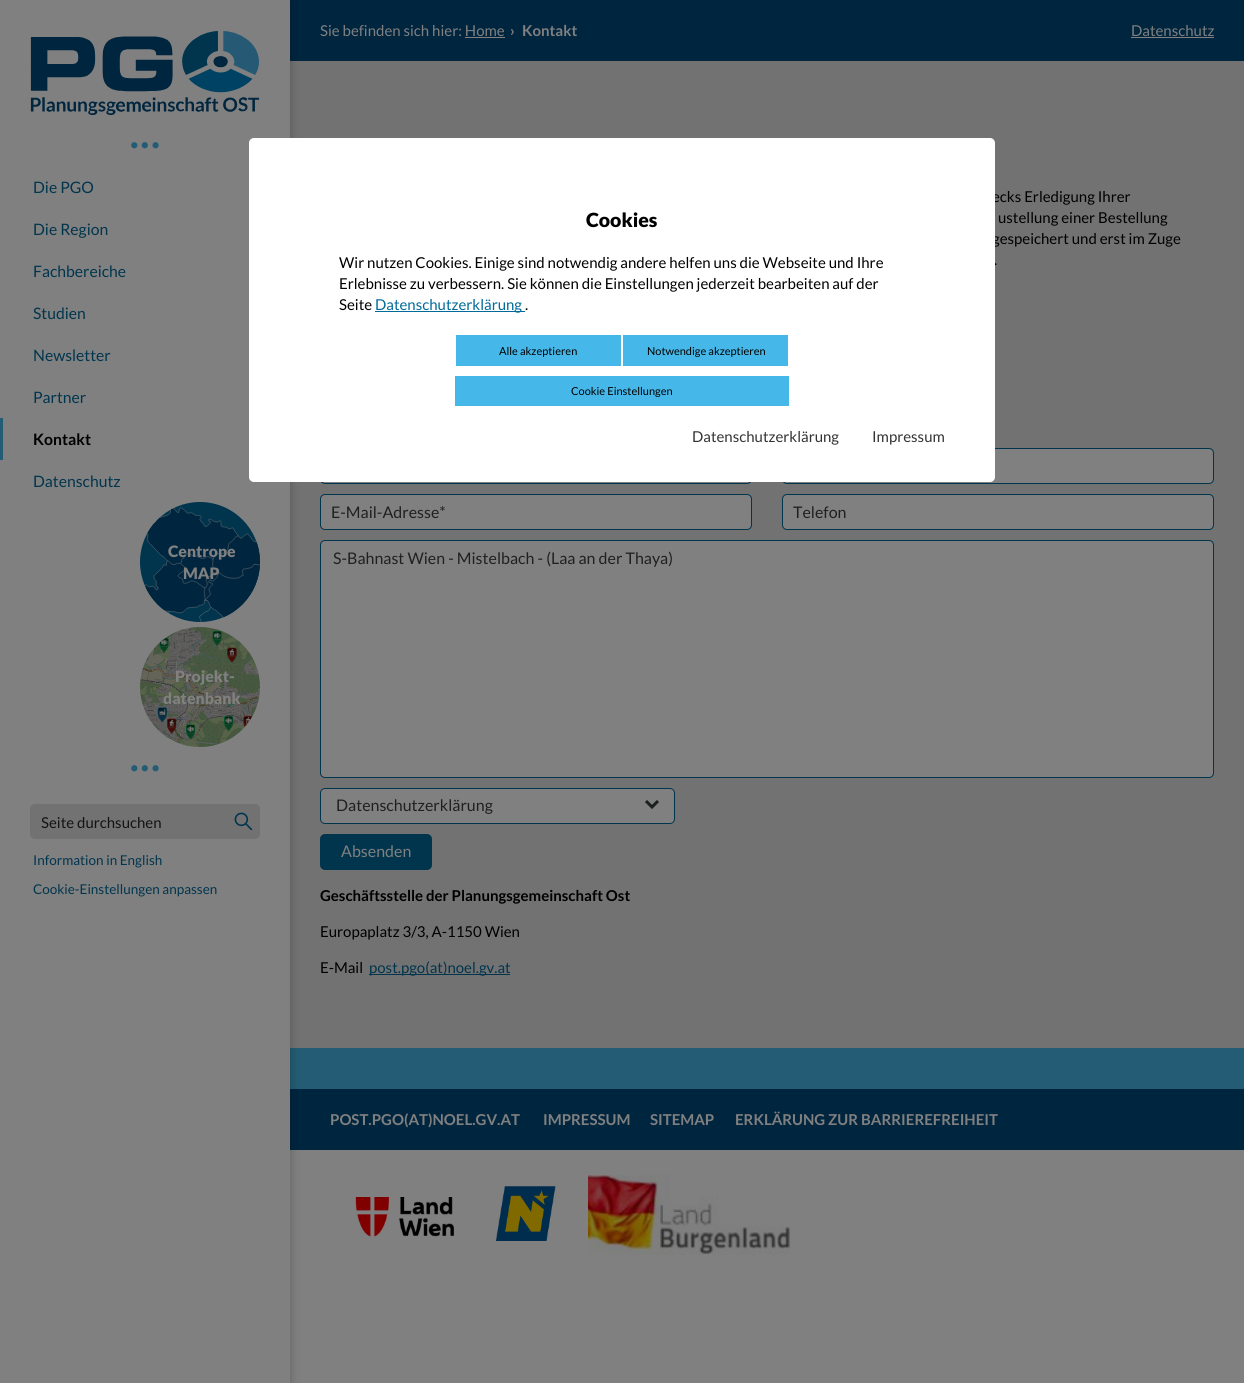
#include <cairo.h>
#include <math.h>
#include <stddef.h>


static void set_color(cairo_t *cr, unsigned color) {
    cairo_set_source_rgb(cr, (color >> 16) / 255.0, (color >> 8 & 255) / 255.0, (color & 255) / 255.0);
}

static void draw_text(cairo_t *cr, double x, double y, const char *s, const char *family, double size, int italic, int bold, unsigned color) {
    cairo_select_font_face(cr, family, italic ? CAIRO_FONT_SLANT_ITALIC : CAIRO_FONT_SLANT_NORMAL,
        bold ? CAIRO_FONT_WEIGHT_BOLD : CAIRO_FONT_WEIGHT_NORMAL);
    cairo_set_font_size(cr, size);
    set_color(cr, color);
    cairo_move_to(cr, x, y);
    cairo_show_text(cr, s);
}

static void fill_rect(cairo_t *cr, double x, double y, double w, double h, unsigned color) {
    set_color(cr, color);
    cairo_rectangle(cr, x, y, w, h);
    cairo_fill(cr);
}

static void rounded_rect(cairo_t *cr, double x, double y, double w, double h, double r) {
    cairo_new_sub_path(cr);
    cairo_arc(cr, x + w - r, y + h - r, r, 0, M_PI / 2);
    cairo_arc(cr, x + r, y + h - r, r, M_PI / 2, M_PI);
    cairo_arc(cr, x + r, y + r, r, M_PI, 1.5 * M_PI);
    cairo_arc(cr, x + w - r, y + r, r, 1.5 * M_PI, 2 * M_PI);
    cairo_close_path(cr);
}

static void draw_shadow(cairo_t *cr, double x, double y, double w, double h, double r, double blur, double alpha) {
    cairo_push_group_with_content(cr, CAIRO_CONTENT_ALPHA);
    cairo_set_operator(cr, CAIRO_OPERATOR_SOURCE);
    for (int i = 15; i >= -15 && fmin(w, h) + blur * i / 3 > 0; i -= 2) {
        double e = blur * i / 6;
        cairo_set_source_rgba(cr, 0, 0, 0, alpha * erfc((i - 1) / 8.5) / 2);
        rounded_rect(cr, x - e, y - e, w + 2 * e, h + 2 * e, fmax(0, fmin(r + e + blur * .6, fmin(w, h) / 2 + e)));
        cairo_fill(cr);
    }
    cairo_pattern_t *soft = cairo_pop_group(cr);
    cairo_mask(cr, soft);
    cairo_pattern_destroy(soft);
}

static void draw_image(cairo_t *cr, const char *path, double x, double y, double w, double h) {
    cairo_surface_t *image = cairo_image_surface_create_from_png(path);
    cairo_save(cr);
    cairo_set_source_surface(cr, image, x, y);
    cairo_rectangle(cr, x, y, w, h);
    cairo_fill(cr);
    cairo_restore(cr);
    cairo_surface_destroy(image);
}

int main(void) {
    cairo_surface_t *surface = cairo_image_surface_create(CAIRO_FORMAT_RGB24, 1244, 1383);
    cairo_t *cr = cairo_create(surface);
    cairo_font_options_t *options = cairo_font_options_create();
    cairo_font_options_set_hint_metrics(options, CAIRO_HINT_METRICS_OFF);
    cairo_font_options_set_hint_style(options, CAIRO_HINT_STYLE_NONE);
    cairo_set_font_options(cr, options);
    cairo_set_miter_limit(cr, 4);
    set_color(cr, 0x808080);
    cairo_paint(cr);
    fill_rect(cr, 290, 61, 954, 987, 0x727272);
    fill_rect(cr, 290, 0, 954, 61, 0x00253F);
    fill_rect(cr, 290, 1048, 954, 41, 0x235C74);
    fill_rect(cr, 290, 1089, 954, 61, 0x00253F);
    set_color(cr, 0x000000);
    draw_shadow(cr, 0, 0, 290, 1383, 0, 5, 0.25);
    fill_rect(cr, 0, 0, 290, 1383, 0x808080);
    draw_image(cr, "assets/img1.png", 30, 31, 230, 84);
    draw_text(cr, 129, 148, "...", "Lato", 50, 0, 0, 0x235C74);
    draw_text(cr, 33, 193, "Die PGO", "Lato", 15.75, 0, 0, 0x00354D);
    draw_text(cr, 33, 235, "Die Region", "Lato", 15.75, 0, 0, 0x00354D);
    draw_text(cr, 33, 277, "Fachbereiche", "Lato", 15.75, 0, 0, 0x00354D);
    draw_text(cr, 33, 319, "Studien", "Lato", 15.75, 0, 0, 0x00354D);
    draw_text(cr, 33, 361, "Newsletter", "Lato", 15.75, 0, 0, 0x00354D);
    draw_text(cr, 33, 403, "Partner", "Lato", 15.75, 0, 0, 0x00354D);
    fill_rect(cr, 0, 418, 3, 42, 0x235C74);
    draw_text(cr, 33, 445, "Kontakt", "Lato", 15.75, 0, 1, 0x000000);
    draw_text(cr, 33, 487, "Datenschutz", "Lato", 15.75, 0, 0, 0x00354D);
    cairo_new_path(cr);
    cairo_arc(cr, 200, 562, 60, 0, 2 * M_PI);
    cairo_fill(cr);
    draw_image(cr, "assets/img2.png", 145, 507, 115, 115);
    draw_text(cr, 168, 557, "Centrope", "Lato Black", 15.75, 0, 0, 0x808080);
    draw_text(cr, 183, 579, "MAP", "Lato Black", 15.75, 0, 0, 0x808080);
    draw_image(cr, "assets/img3.png", 140, 627, 120, 120);
    draw_text(cr, 175, 682, "Projekt-", "Lato Black", 15.75, 0, 0, 0x808080);
    draw_text(cr, 163, 704, "datenbank", "Lato Black", 15.75, 0, 0, 0x808080);
    draw_text(cr, 129, 771, "...", "Lato", 50, 0, 0, 0x235C74);
    set_color(cr, 0x727272);
    rounded_rect(cr, 30, 804, 230, 35, 5);
    cairo_fill(cr);
    draw_text(cr, 41, 828, "Seite durchsuchen", "Lato", 15, 0, 0, 0x131313);
    draw_image(cr, "assets/img4.png", 234, 812, 19, 19);
    draw_text(cr, 33, 865, "Information in English", "Lato", 13.5, 0, 0, 0x00354D);
    draw_text(cr, 33, 894, "Cookie-Einstellungen anpassen", "Lato", 13.5, 0, 0, 0x00354D);
    draw_text(cr, 320, 36, "Sie befinden sich hier: Home", "Lato", 15, 0, 0, 0x808080);
    draw_text(cr, 510, 36, "›", "Lato", 15, 0, 1, 0x808080);
    fill_rect(cr, 465, 37, 40, 1, 0x808080);
    draw_text(cr, 522, 36, "Kontakt", "Lato", 15, 0, 1, 0x808080);
    draw_text(cr, 1131, 36, "Datenschutz", "Lato", 15, 0, 0, 0x808080);
    fill_rect(cr, 1131, 37, 83, 1, 0x808080);
    draw_text(cr, 992, 202, "ecks Erledigung Ihrer", "Lato", 15, 0, 0, 0x000000);
    draw_text(cr, 998, 223, "ustellung einer Bestellung", "Lato", 15, 0, 0, 0x000000);
    draw_text(cr, 992, 244, "gespeichert und erst im Zuge", "Lato", 15, 0, 0, 0x000000);
    draw_text(cr, 994, 265, ".", "Lato", 15, 0, 0, 0x000000);
    set_color(cr, 0x808080);
    rounded_rect(cr, 320.5, 448.5, 431, 35, 4.5);
    cairo_fill_preserve(cr);
    set_color(cr, 0x00354D);
    cairo_set_line_width(cr, 1);
    cairo_stroke(cr);
    set_color(cr, 0x808080);
    rounded_rect(cr, 782.5, 448.5, 431, 35, 4.5);
    cairo_fill_preserve(cr);
    set_color(cr, 0x00354D);
    cairo_stroke(cr);
    set_color(cr, 0x808080);
    rounded_rect(cr, 320.5, 494.5, 431, 35, 4.5);
    cairo_fill_preserve(cr);
    set_color(cr, 0x00354D);
    cairo_stroke(cr);
    draw_text(cr, 331, 518, "E-Mail-Adresse*", "Lato", 16, 0, 0, 0x202020);
    set_color(cr, 0x808080);
    rounded_rect(cr, 782.5, 494.5, 431, 35, 4.5);
    cairo_fill_preserve(cr);
    set_color(cr, 0x00354D);
    cairo_stroke(cr);
    draw_text(cr, 793, 518, "Telefon", "Lato", 16, 0, 0, 0x202020);
    set_color(cr, 0x808080);
    rounded_rect(cr, 320.5, 540.5, 893, 237, 4.5);
    cairo_fill_preserve(cr);
    set_color(cr, 0x00354D);
    cairo_stroke(cr);
    draw_text(cr, 333, 564, "S-Bahnast Wien - Mistelbach - (Laa an der Thaya)", "Lato", 16, 0, 0, 0x202020);
    set_color(cr, 0x808080);
    rounded_rect(cr, 320, 788, 355, 36, 5);
    cairo_fill(cr);
    cairo_new_path(cr);
    cairo_move_to(cr, 646, 801);
    cairo_line_to(cr, 652, 807);
    cairo_line_to(cr, 658, 801);
    set_color(cr, 0x1B1F1F);
    cairo_set_line_width(cr, 3);
    cairo_stroke(cr);
    rounded_rect(cr, 320.5, 788.5, 354, 35, 4.5);
    set_color(cr, 0x00354D);
    cairo_set_line_width(cr, 1);
    cairo_stroke(cr);
    draw_text(cr, 336, 811, "Datenschutzerklärung", "Lato", 16, 0, 0, 0x202020);
    set_color(cr, 0x00354D);
    rounded_rect(cr, 320, 834, 112, 36, 5);
    cairo_fill(cr);
    draw_text(cr, 341, 857, "Absenden", "Lato", 16, 0, 0, 0x808080);
    draw_text(cr, 320, 901, "Geschäftsstelle der Planungsgemeinschaft Ost", "Lato", 15, 0, 1, 0x000000);
    draw_text(cr, 320, 937, "Europaplatz 3/3, A-1150 Wien", "Lato", 15, 0, 0, 0x000000);
    draw_text(cr, 320, 973, "E-Mail", "Lato", 15, 0, 0, 0x000000);
    fill_rect(cr, 369, 974, 141, 1, 0x00354D);
    draw_text(cr, 369, 973, "post.pgo(at)noel.gv.at", "Lato", 15, 0, 0, 0x00354D);
    draw_text(cr, 330, 1125, "POST.PGO(AT)NOEL.GV.AT", "Lato", 15, 0, 1, 0x808080);
    draw_text(cr, 543, 1125, "IMPRESSUM", "Lato", 15, 0, 1, 0x808080);
    draw_text(cr, 650, 1125, "SITEMAP", "Lato", 15, 0, 1, 0x808080);
    draw_text(cr, 735, 1125, "ERKLÄRUNG ZUR BARRIEREFREIHEIT", "Lato", 15, 0, 1, 0x808080);
    draw_image(cr, "assets/img5.png", 355, 1197, 99, 40);
    draw_image(cr, "assets/img6.png", 496, 1186, 60, 55);
    draw_image(cr, "assets/img7.png", 588, 1175, 203, 80);
    set_color(cr, 0xFFFFFF);
    rounded_rect(cr, 249, 138, 746, 344, 5);
    cairo_fill(cr);
    draw_text(cr, 586, 227, "Cookies", "Lato Black", 19.5, 0, 0, 0x000000);
    draw_text(cr, 339, 268, "Wir nutzen Cookies. Einige sind notwendig andere helfen uns die Webseite und Ihre", "Lato", 15, 0, 0, 0x000000);
    draw_text(cr, 339, 289, "Erlebnisse zu verbessern. Sie können die Einstellungen jederzeit bearbeiten auf der", "Lato", 15, 0, 0, 0x000000);
    draw_text(cr, 339, 310, "Seite", "Lato", 15, 0, 0, 0x000000);
    fill_rect(cr, 375, 311, 150, 1, 0x006A9A);
    draw_text(cr, 375, 310, "Datenschutzerklärung", "Lato", 15, 0, 0, 0x006A9A);
    draw_text(cr, 525, 310, ".", "Lato", 15, 0, 0, 0x000000);
    fill_rect(cr, 456, 335, 165, 31, 0x45B7E8);
    draw_text(cr, 499, 355, "Alle akzeptieren", "Lato", 11, 0, 0, 0x000000);
    fill_rect(cr, 623, 335, 165, 31, 0x45B7E8);
    draw_text(cr, 647, 355, "Notwendige akzeptieren", "Lato", 11, 0, 0, 0x000000);
    fill_rect(cr, 455, 376, 334, 30, 0x45B7E8);
    draw_text(cr, 571, 395, "Cookie Einstellungen", "Lato", 11, 0, 0, 0x000000);
    draw_text(cr, 692, 442, "Datenschutzerklärung", "Lato", 15, 0, 0, 0x333333);
    draw_text(cr, 872, 442, "Impressum", "Lato", 15, 0, 0, 0x333333);
    cairo_surface_write_to_png(surface, "output.png");
    cairo_font_options_destroy(options);
    cairo_destroy(cr);
    cairo_surface_destroy(surface);
    return 0;
}
